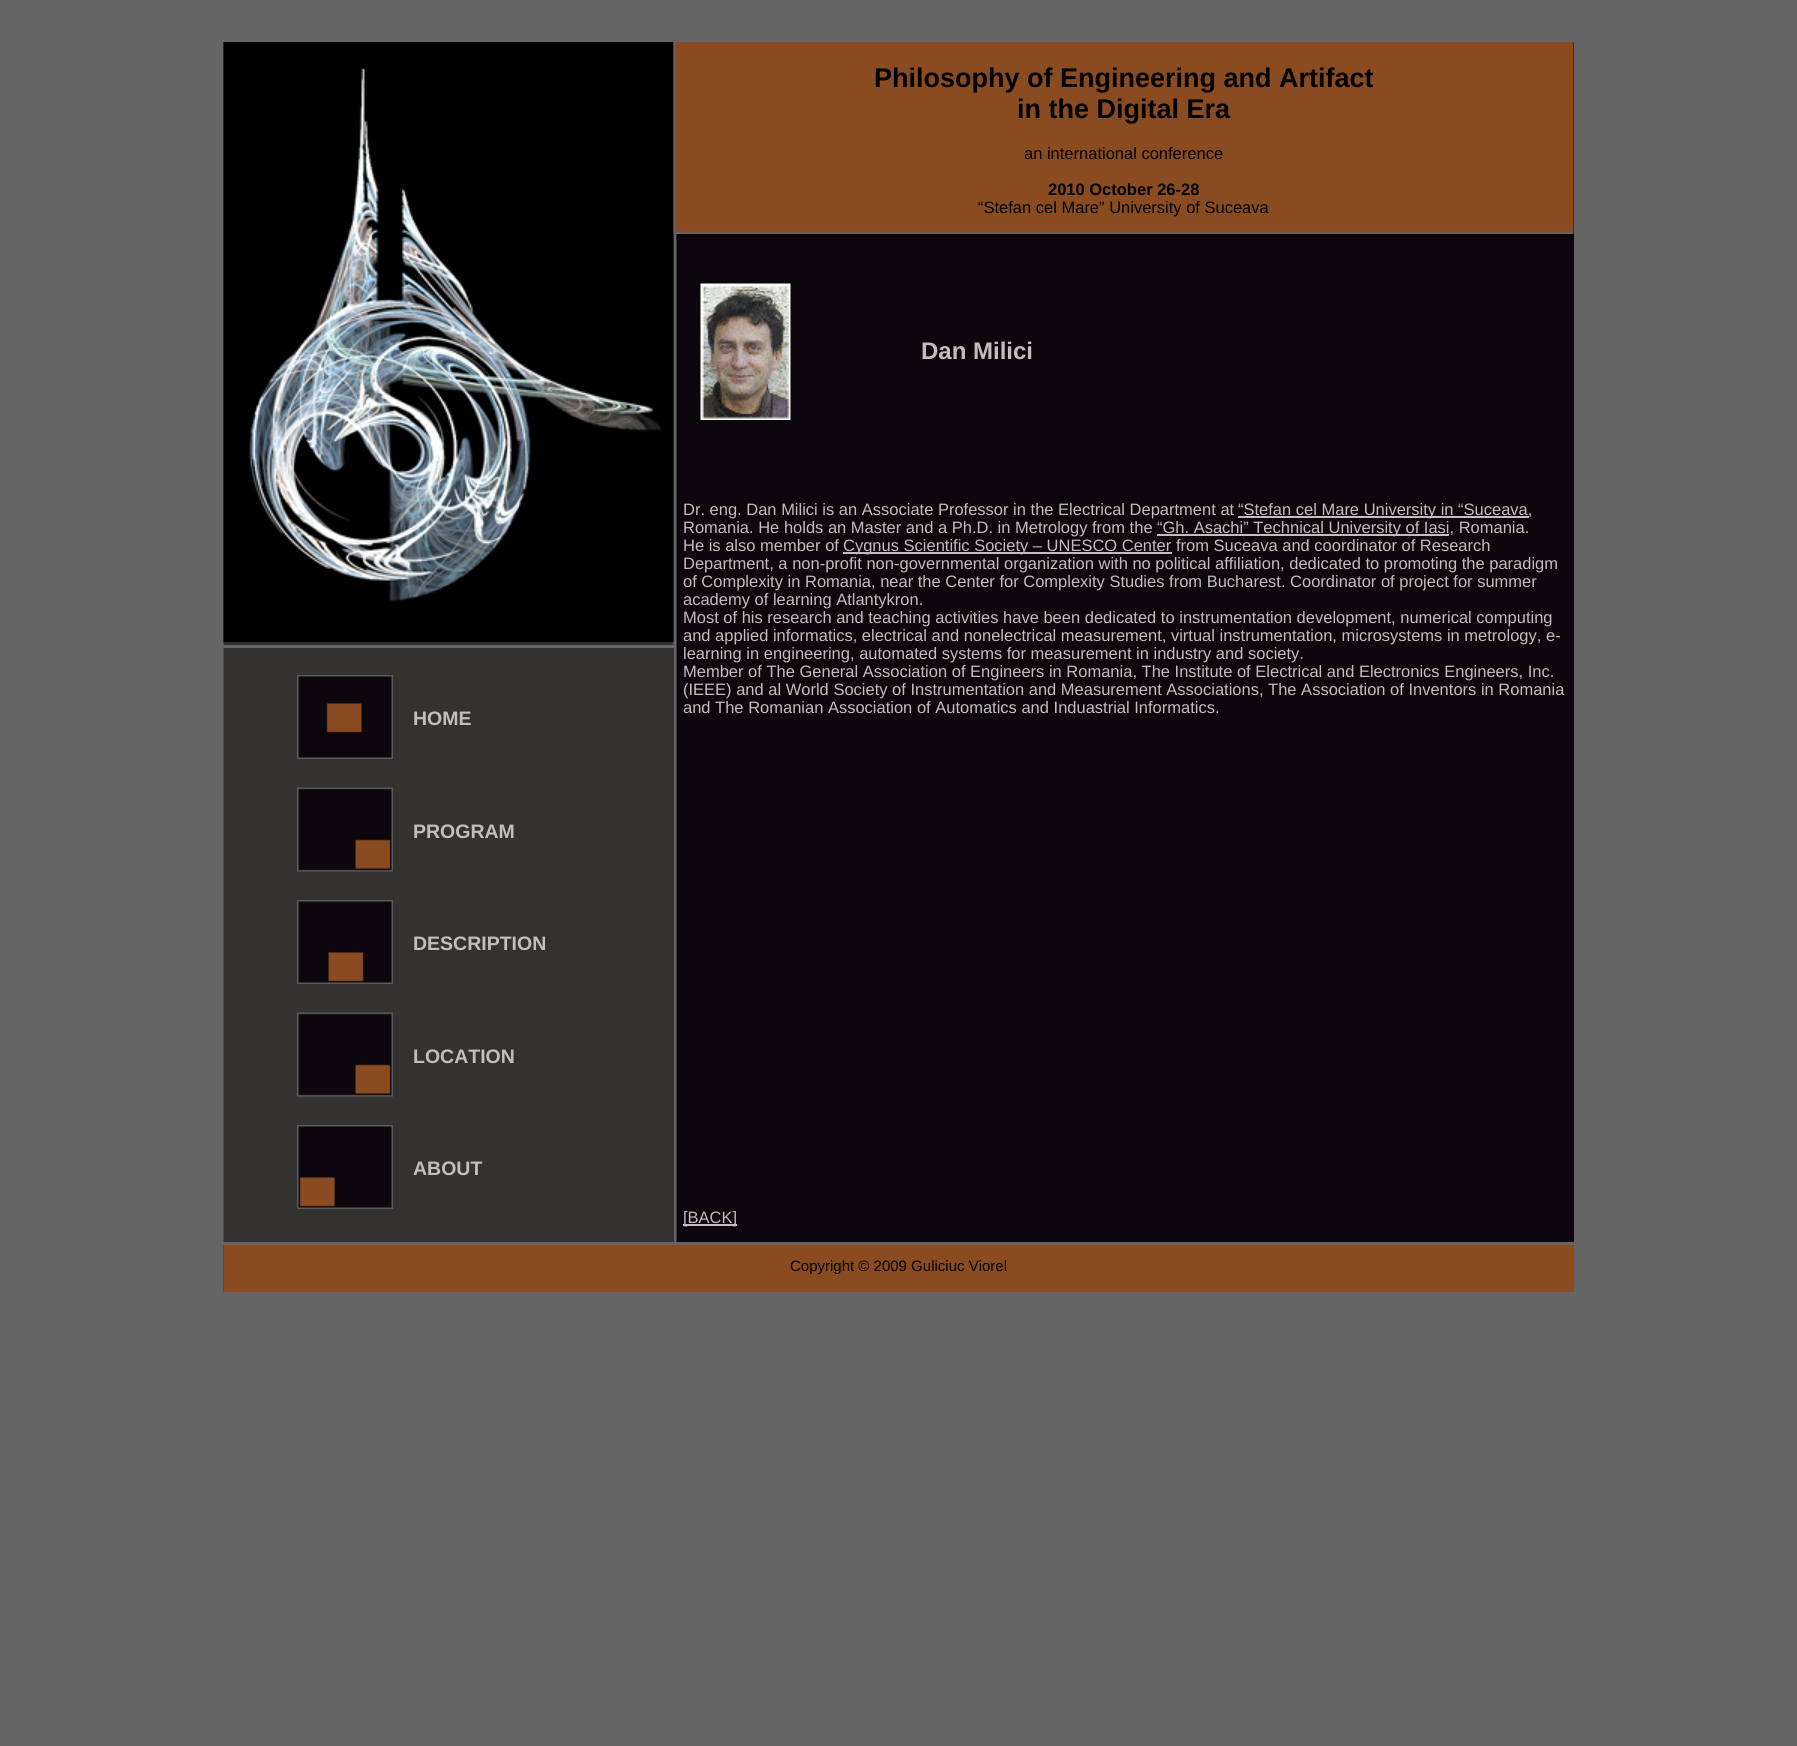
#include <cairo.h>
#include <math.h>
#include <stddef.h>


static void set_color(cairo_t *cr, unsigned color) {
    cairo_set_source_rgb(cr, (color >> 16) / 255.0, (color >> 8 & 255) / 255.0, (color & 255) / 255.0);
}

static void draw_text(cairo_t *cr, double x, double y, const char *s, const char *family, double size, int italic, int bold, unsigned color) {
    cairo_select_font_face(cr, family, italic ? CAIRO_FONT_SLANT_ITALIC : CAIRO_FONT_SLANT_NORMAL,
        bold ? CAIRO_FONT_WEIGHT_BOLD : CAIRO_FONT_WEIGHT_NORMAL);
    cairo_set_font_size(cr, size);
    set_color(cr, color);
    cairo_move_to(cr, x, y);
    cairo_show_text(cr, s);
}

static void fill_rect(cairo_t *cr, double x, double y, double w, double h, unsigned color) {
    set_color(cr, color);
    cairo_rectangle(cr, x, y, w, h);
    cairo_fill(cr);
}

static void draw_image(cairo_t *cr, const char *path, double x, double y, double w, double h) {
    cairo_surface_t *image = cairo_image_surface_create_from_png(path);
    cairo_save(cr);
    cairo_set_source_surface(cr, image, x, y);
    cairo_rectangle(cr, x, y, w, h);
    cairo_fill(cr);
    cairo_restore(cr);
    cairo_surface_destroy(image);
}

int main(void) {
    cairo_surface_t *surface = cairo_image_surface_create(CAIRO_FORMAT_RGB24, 1797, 1746);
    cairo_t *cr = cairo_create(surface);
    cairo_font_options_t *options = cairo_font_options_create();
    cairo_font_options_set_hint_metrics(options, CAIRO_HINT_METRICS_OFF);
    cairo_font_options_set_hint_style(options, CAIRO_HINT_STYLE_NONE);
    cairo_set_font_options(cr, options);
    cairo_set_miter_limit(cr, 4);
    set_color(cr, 0x656565);
    cairo_paint(cr);
    fill_rect(cr, 676, 42, 898, 1200, 0x0C070D);
    draw_image(cr, "assets/img1.png", 223, 42, 454, 1250);
    draw_image(cr, "assets/img3.png", 223, 42, 451, 600);
    draw_image(cr, "assets/img2.png", 673, 42, 901, 192);
    draw_text(cr, 874, 87, "Philosophy of Engineering and Artifact", "Liberation Sans", 27, 0, 1, 0x000000);
    draw_text(cr, 1017, 118, "in the Digital Era", "Liberation Sans", 27, 0, 1, 0x000000);
    draw_text(cr, 1024, 159, "an international conference", "Liberation Sans", 16.5, 0, 0, 0x000000);
    draw_text(cr, 1048, 195, "2010 October 26-28", "Liberation Sans", 16.5, 0, 1, 0x000000);
    draw_text(cr, 978, 213, "“Stefan cel Mare” University of Suceava", "Liberation Sans", 16.5, 0, 0, 0x000000);
    fill_rect(cr, 673, 648, 1, 594, 0x343231);
    fill_rect(cr, 223, 645, 451, 3, 0x656565);
    draw_image(cr, "assets/img4.png", 297, 675, 96, 84);
    draw_text(cr, 413, 725, "HOME", "Liberation Sans", 19.5, 0, 1, 0xC2BEBE);
    draw_image(cr, "assets/img5.png", 297, 787, 96, 85);
    draw_text(cr, 413, 838, "PROGRAM", "Liberation Sans", 19.5, 0, 1, 0xC2BEBE);
    draw_image(cr, "assets/img6.png", 297, 900, 96, 84);
    draw_text(cr, 413, 950, "DESCRIPTION", "Liberation Sans", 19.5, 0, 1, 0xC2BEBE);
    draw_image(cr, "assets/img5.png", 297, 1012, 96, 85);
    draw_text(cr, 413, 1063, "LOCATION", "Liberation Sans", 19.5, 0, 1, 0xC2BEBE);
    draw_image(cr, "assets/img7.png", 297, 1125, 96, 84);
    draw_text(cr, 413, 1175, "ABOUT", "Liberation Sans", 19.5, 0, 1, 0xC2BEBE);
    draw_image(cr, "assets/img8.png", 700, 283, 91, 137);
    draw_text(cr, 921, 359, "Dan Milici", "Liberation Sans", 24, 0, 1, 0xC2BEBE);
    draw_text(cr, 683, 515, "Dr. eng. Dan Milici is an Associate Professor in the Electrical Department at", "Liberation Sans", 16.5, 0, 0, 0xC2BEBE);
    fill_rect(cr, 1238, 516, 291, 2, 0xC2BEBE);
    draw_text(cr, 1238, 515, "“Stefan cel Mare University in “Suceava,", "Liberation Sans", 16.5, 0, 0, 0xC2BEBE);
    draw_text(cr, 683, 533, "Romania. He holds an Master and a Ph.D. in Metrology from the", "Liberation Sans", 16.5, 0, 0, 0xC2BEBE);
    fill_rect(cr, 1157, 534, 292, 2, 0xC2BEBE);
    draw_text(cr, 1157, 533, "“Gh. Asachi” Technical University of Iasi, Romania.", "Liberation Sans", 16.5, 0, 0, 0xC2BEBE);
    draw_text(cr, 683, 551, "He is also member of", "Liberation Sans", 16.5, 0, 0, 0xC2BEBE);
    fill_rect(cr, 843, 552, 329, 2, 0xC2BEBE);
    draw_text(cr, 843, 551, "Cygnus Scientific Society – UNESCO Center from Suceava and coordinator of Research", "Liberation Sans", 16.5, 0, 0, 0xC2BEBE);
    draw_text(cr, 683, 569, "Department, a non-profit non-governmental organization with no political affiliation, dedicated to promoting the paradigm", "Liberation Sans", 16.5, 0, 0, 0xC2BEBE);
    draw_text(cr, 683, 587, "of Complexity in Romania, near the Center for Complexity Studies from Bucharest. Coordinator of project for summer", "Liberation Sans", 16.5, 0, 0, 0xC2BEBE);
    draw_text(cr, 683, 605, "academy of learning Atlantykron.", "Liberation Sans", 16.5, 0, 0, 0xC2BEBE);
    draw_text(cr, 683, 623, "Most of his research and teaching activities have been dedicated to instrumentation development, numerical computing", "Liberation Sans", 16.5, 0, 0, 0xC2BEBE);
    draw_text(cr, 683, 641, "and applied informatics, electrical and nonelectrical measurement, virtual instrumentation, microsystems in metrology, e-", "Liberation Sans", 16.5, 0, 0, 0xC2BEBE);
    draw_text(cr, 683, 659, "learning in engineering, automated systems for measurement in industry and society.", "Liberation Sans", 16.5, 0, 0, 0xC2BEBE);
    draw_text(cr, 683, 677, "Member of The General Association of Engineers in Romania, The Institute of Electrical and Electronics Engineers, Inc.", "Liberation Sans", 16.5, 0, 0, 0xC2BEBE);
    draw_text(cr, 683, 695, "(IEEE) and al World Society of Instrumentation and Measurement Associations, The Association of Inventors in Romania", "Liberation Sans", 16.5, 0, 0, 0xC2BEBE);
    draw_text(cr, 683, 713, "and The Romanian Association of Automatics and Induastrial Informatics.", "Liberation Sans", 16.5, 0, 0, 0xC2BEBE);
    fill_rect(cr, 683, 1224, 54, 2, 0xC2BEBE);
    draw_text(cr, 683, 1223, "[BACK]", "Liberation Sans", 16.5, 0, 0, 0xC2BEBE);
    fill_rect(cr, 224, 1245, 1350, 47, 0x8A4B20);
    fill_rect(cr, 223, 1242, 451, 3, 0x656565);
    draw_text(cr, 790, 1271, "Copyright © 2009 Guliciuc Viorel", "Liberation Sans", 15, 0, 0, 0x000000);
    cairo_surface_write_to_png(surface, "output.png");
    cairo_font_options_destroy(options);
    cairo_destroy(cr);
    cairo_surface_destroy(surface);
    return 0;
}
